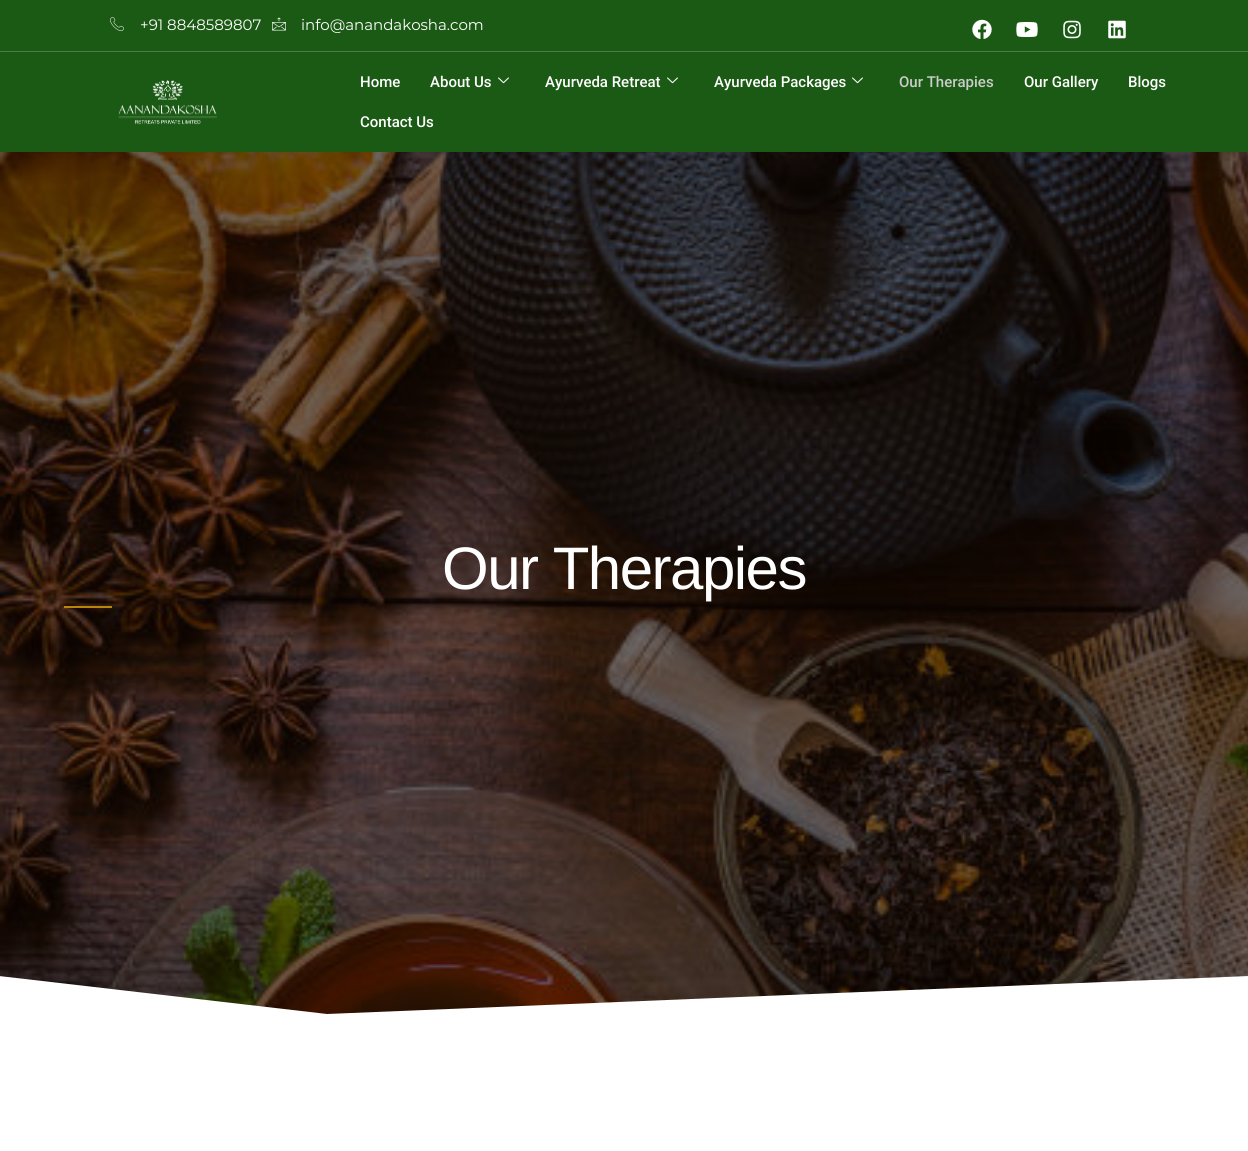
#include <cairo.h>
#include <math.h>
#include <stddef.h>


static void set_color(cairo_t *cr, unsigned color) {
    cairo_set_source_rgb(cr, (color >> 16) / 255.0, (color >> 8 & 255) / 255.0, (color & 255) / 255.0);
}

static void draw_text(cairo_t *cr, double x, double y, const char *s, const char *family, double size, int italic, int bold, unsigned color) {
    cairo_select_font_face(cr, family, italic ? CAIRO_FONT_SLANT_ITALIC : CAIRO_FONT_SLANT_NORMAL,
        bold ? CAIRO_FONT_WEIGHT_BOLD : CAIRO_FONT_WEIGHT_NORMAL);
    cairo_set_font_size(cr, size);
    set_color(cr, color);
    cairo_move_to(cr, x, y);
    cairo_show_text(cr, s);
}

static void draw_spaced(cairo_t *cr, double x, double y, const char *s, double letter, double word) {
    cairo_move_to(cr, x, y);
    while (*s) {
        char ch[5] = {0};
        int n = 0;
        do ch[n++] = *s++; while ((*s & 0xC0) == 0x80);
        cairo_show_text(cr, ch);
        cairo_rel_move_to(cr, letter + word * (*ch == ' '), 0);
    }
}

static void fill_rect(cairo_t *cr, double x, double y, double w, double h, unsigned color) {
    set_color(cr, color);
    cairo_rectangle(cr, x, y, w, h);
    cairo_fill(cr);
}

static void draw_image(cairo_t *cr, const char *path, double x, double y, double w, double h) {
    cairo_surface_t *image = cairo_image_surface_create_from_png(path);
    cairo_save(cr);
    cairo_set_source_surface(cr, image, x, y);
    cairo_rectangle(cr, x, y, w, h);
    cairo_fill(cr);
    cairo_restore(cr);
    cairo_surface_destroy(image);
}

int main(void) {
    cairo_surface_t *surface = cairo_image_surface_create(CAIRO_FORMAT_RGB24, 1248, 1151);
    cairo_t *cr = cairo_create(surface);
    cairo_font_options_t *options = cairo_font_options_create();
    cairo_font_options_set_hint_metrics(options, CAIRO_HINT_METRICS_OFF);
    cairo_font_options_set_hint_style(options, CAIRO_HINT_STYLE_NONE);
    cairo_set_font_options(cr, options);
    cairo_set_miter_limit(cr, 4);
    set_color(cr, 0xFFFFFF);
    cairo_paint(cr);
    fill_rect(cr, 0, 0, 1248, 51, 0x1B5A14);
    fill_rect(cr, 0, 51, 1248, 1, 0x517A4C);
    draw_image(cr, "assets/img1.png", 110, 17, 14, 15);
    draw_text(cr, 140, 30, "+91 8848589807", "Montserrat", 15, 0, 0, 0xFFFFFF);
    draw_image(cr, "assets/img2.png", 272, 17, 14, 14);
    draw_text(cr, 301, 30, "info@anandakosha.com", "Montserrat", 15, 0, 0, 0xFFFFFF);
    draw_image(cr, "assets/img3.png", 972, 19, 20, 20);
    draw_image(cr, "assets/img4.png", 1016, 22, 22, 15);
    draw_image(cr, "assets/img5.png", 1063, 20, 18, 19);
    draw_image(cr, "assets/img6.png", 1108, 20, 18, 19);
    fill_rect(cr, 0, 52, 1248, 100, 0x1B5A14);
    draw_image(cr, "assets/img7.png", 118, 80, 99, 45);
    draw_text(cr, 360, 87, "Home", "Roboto Medium", 15, 0, 0, 0xFFFFFF);
    draw_text(cr, 430, 87, "About Us", "Roboto Medium", 15, 0, 0, 0xFFFFFF);
    draw_image(cr, "assets/img8.png", 498, 77, 11, 7);
    draw_text(cr, 545, 87, "Ayurveda Retreat", "Roboto Medium", 15, 0, 0, 0xFFFFFF);
    draw_image(cr, "assets/img8.png", 667, 77, 11, 7);
    draw_text(cr, 714, 87, "Ayurveda Packages", "Roboto Medium", 15, 0, 0, 0xFFFFFF);
    draw_image(cr, "assets/img8.png", 852, 77, 11, 7);
    draw_text(cr, 899, 87, "Our Therapies", "Roboto Medium", 15, 0, 0, 0xCACDC9);
    draw_text(cr, 1024, 87, "Our Gallery", "Roboto Medium", 15, 0, 0, 0xFFFFFF);
    draw_text(cr, 1128, 87, "Blogs", "Roboto Medium", 15, 0, 0, 0xFFFFFF);
    draw_text(cr, 360, 127, "Contact Us", "Roboto Medium", 15, 0, 0, 0xFFFFFF);
    draw_image(cr, "assets/img9.png", 0, 152, 1248, 862);
    cairo_select_font_face(cr, "Liberation Sans", CAIRO_FONT_SLANT_NORMAL, CAIRO_FONT_WEIGHT_NORMAL);
    cairo_set_font_size(cr, 60);
    draw_spaced(cr, 442, 589, "Our Therapies", -1.5, 0);
    fill_rect(cr, 64, 606, 48, 2, 0xB8860B);
    set_color(cr, 0xFFFFFF);
    cairo_new_path(cr);
    cairo_move_to(cr, 327, 1014);
    cairo_line_to(cr, 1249, 976);
    cairo_line_to(cr, 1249, 1016);
    cairo_line_to(cr, -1, 1016);
    cairo_line_to(cr, -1, 976);
    cairo_close_path(cr);
    cairo_fill(cr);
    cairo_surface_write_to_png(surface, "output.png");
    cairo_font_options_destroy(options);
    cairo_destroy(cr);
    cairo_surface_destroy(surface);
    return 0;
}
